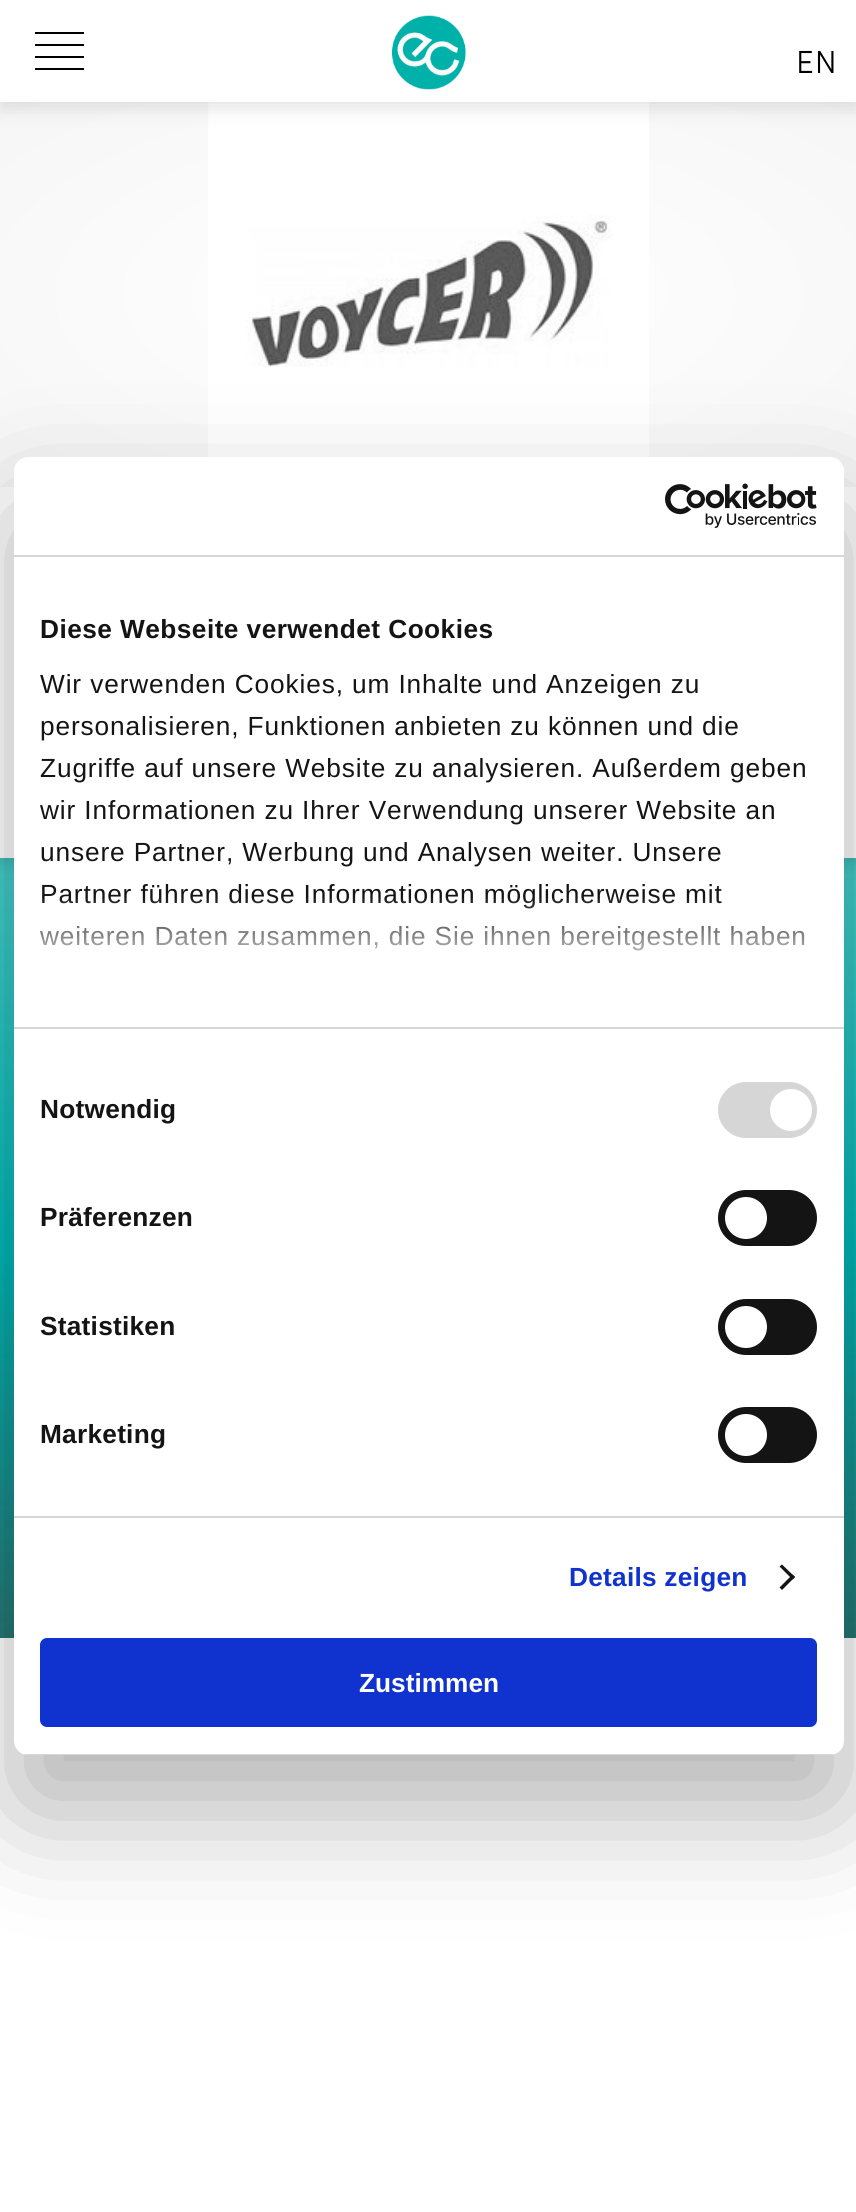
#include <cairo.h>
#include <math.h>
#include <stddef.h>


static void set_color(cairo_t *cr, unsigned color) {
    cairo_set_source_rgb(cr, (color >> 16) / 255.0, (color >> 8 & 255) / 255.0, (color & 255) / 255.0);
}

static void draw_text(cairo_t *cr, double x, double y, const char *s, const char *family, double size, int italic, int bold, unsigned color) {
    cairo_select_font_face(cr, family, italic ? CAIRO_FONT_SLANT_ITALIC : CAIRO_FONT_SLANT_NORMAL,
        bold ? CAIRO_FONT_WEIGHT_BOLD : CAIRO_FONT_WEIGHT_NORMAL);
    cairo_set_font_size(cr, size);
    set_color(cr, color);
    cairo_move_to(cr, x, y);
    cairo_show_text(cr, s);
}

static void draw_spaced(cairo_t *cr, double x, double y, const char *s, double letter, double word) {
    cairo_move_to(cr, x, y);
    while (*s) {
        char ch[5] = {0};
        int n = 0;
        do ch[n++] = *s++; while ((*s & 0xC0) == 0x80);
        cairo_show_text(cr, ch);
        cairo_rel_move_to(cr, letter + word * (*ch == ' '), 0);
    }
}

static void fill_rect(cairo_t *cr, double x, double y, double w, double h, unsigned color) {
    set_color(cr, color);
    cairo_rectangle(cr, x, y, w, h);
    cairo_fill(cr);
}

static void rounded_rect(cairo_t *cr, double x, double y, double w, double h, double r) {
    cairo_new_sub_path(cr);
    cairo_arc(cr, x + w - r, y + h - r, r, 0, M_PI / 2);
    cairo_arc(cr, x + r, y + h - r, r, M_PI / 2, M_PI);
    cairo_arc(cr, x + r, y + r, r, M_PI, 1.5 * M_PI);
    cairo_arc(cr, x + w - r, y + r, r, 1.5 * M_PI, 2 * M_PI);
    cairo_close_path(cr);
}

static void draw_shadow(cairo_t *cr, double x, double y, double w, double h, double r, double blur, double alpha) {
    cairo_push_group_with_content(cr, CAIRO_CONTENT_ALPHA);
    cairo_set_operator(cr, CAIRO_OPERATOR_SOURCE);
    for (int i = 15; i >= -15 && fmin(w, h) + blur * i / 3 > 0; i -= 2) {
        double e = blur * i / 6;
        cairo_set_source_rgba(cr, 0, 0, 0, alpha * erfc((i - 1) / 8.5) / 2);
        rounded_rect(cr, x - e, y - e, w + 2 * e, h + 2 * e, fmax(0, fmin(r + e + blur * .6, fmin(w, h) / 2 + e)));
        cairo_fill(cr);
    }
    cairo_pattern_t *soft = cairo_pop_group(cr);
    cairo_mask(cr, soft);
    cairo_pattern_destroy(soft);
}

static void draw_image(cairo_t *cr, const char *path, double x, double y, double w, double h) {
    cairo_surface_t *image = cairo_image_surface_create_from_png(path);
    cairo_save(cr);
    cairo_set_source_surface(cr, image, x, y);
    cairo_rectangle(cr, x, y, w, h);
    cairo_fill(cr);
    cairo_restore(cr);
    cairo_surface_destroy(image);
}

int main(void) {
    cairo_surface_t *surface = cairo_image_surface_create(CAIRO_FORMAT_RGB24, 856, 2212);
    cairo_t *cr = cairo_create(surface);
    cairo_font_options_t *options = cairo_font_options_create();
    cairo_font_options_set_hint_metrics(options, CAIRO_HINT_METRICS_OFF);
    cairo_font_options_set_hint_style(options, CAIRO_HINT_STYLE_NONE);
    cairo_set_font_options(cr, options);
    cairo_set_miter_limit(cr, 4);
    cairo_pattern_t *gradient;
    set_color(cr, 0xFFFFFF);
    cairo_paint(cr);
    gradient = cairo_pattern_create_linear(429, 858, 429, 1638);
    cairo_pattern_add_color_stop_rgba(gradient, 0, 0.278, 0.816, 0.8, 1);
    cairo_pattern_add_color_stop_rgba(gradient, 0.5, 0, 0.722, 0.722, 1);
    cairo_pattern_add_color_stop_rgba(gradient, 1, 0.145, 0.467, 0.451, 1);
    cairo_set_source(cr, gradient);
    cairo_pattern_destroy(gradient);
    cairo_rectangle(cr, 0, 858, 856, 780);
    cairo_fill(cr);
    set_color(cr, 0x000000);
    draw_shadow(cr, 0, 7, 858, 858, 0, 10.5, 0.09);
    draw_shadow(cr, 0, -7, 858, 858, 0, 10.5, 0.18);
    fill_rect(cr, 0, 487, 856, 371, 0xFFFFFF);
    gradient = cairo_pattern_create_radial(0, 0, 0, 0, 0, 1);
    cairo_pattern_set_matrix(gradient, &(cairo_matrix_t){1.0 / 606, 0, 0, 1.0 / 272, -1.0 * 429 / 606, -1.0 * 294 / 272});
    cairo_pattern_add_color_stop_rgba(gradient, 0, 1, 1, 1, 1);
    cairo_pattern_add_color_stop_rgba(gradient, 1, 0.965, 0.965, 0.965, 1);
    cairo_set_source(cr, gradient);
    cairo_pattern_destroy(gradient);
    cairo_rectangle(cr, 0, 102, 856, 385);
    cairo_fill(cr);
    draw_image(cr, "assets/img1.png", 208, 102, 441, 355);
    set_color(cr, 0x000000);
    draw_shadow(cr, 0, 7, 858, 102, 0, 10.5, 0.09);
    draw_shadow(cr, 0, -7, 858, 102, 0, 10.5, 0.09);
    fill_rect(cr, 0, 0, 856, 102, 0xFFFFFF);
    fill_rect(cr, 35, 32, 49, 2, 0x000000);
    fill_rect(cr, 35, 44, 49, 2, 0x000000);
    fill_rect(cr, 35, 56, 49, 2, 0x000000);
    fill_rect(cr, 35, 68, 49, 2, 0x000000);
    draw_image(cr, "assets/img2.png", 392, 15, 74, 75);
    cairo_select_font_face(cr, "Sofia Light", CAIRO_FONT_SLANT_NORMAL, CAIRO_FONT_WEIGHT_NORMAL);
    cairo_set_font_size(cr, 32);
    draw_spaced(cr, 796, 73, "EN", 0.88, 0);
    set_color(cr, 0x000000);
    draw_shadow(cr, 14, 513, 830, 1298, 14, 59.5, 0.3);
    set_color(cr, 0xFFFFFF);
    rounded_rect(cr, 14, 457, 830, 1298, 14);
    cairo_fill(cr);
    fill_rect(cr, 14, 555, 830, 2, 0xD6D6D6);
    draw_image(cr, "assets/img3.png", 665, 483, 152, 45);
    fill_rect(cr, 14, 1027, 830, 2, 0xD6D6D6);
    cairo_select_font_face(cr, "Liberation Sans", CAIRO_FONT_SLANT_NORMAL, CAIRO_FONT_WEIGHT_BOLD);
    cairo_set_font_size(cr, 26.25);
    set_color(cr, 0x141414);
    draw_spaced(cr, 40, 638, "Diese Webseite verwendet Cookies", 0.45, 0);
    cairo_select_font_face(cr, "Liberation Sans", CAIRO_FONT_SLANT_NORMAL, CAIRO_FONT_WEIGHT_NORMAL);
    draw_spaced(cr, 40, 693, "Wir verwenden Cookies, um Inhalte und Anzeigen zu", 0.88, 0);
    draw_spaced(cr, 40, 735, "personalisieren, Funktionen anbieten zu können und die", 0.88, 0);
    draw_spaced(cr, 40, 777, "Zugriffe auf unsere Website zu analysieren. Außerdem geben", 0.88, 0);
    draw_spaced(cr, 40, 819, "wir Informationen zu Ihrer Verwendung unserer Website an", 0.88, 0);
    draw_spaced(cr, 40, 861, "unsere Partner, Werbung und Analysen weiter. Unsere", 0.88, 0);
    draw_spaced(cr, 40, 903, "Partner führen diese Informationen möglicherweise mit", 0.88, 0);
    draw_spaced(cr, 40, 945, "weiteren Daten zusammen, die Sie ihnen bereitgestellt haben", 0.88, 0);
    gradient = cairo_pattern_create_linear(417, 1028, 417, 896);
    cairo_pattern_add_color_stop_rgba(gradient, 0, 1, 1, 1, 1);
    cairo_pattern_add_color_stop_rgba(gradient, 0.5, 1, 1, 1, 0.8);
    cairo_pattern_add_color_stop_rgba(gradient, 1, 1, 1, 1, 0);
    cairo_set_source(cr, gradient);
    cairo_pattern_destroy(gradient);
    cairo_rectangle(cr, 40, 898, 765, 53);
    cairo_fill(cr);
    fill_rect(cr, 14, 1516, 830, 2, 0xD6D6D6);
    cairo_select_font_face(cr, "Liberation Sans", CAIRO_FONT_SLANT_NORMAL, CAIRO_FONT_WEIGHT_BOLD);
    set_color(cr, 0x141414);
    draw_spaced(cr, 40, 1118, "Notwendig", 0.25, 0);
    set_color(cr, 0xD6D6D6);
    rounded_rect(cr, 718, 1082, 99, 56, 28);
    cairo_fill(cr);
    set_color(cr, 0xFFFFFF);
    cairo_arc(cr, 791, 1110, 21, 0, 2 * M_PI);
    cairo_fill(cr);
    set_color(cr, 0x141414);
    draw_spaced(cr, 40, 1226, "Präferenzen", 0.25, 0);
    rounded_rect(cr, 718, 1190, 99, 56, 28);
    cairo_fill(cr);
    set_color(cr, 0xFFFFFF);
    cairo_arc(cr, 746, 1218, 21, 0, 2 * M_PI);
    cairo_fill(cr);
    set_color(cr, 0x141414);
    draw_spaced(cr, 40, 1335, "Statistiken", 0.25, 0);
    rounded_rect(cr, 718, 1299, 99, 56, 28);
    cairo_fill(cr);
    set_color(cr, 0xFFFFFF);
    cairo_arc(cr, 746, 1327, 21, 0, 2 * M_PI);
    cairo_fill(cr);
    set_color(cr, 0x141414);
    draw_spaced(cr, 40, 1443, "Marketing", 0.25, 0);
    rounded_rect(cr, 718, 1407, 99, 56, 28);
    cairo_fill(cr);
    set_color(cr, 0xFFFFFF);
    cairo_arc(cr, 746, 1435, 21, 0, 2 * M_PI);
    cairo_fill(cr);
    set_color(cr, 0x1032CF);
    draw_spaced(cr, 569, 1586, "Details zeigen", 0.25, 0);
    set_color(cr, 0x141414);
    cairo_new_path(cr);
    cairo_move_to(cr, 782, 1564.5);
    cairo_line_to(cr, 795, 1577);
    cairo_line_to(cr, 792.5, 1579.5);
    cairo_line_to(cr, 779.5, 1566.5);
    cairo_close_path(cr);
    cairo_fill(cr);
    cairo_new_path(cr);
    cairo_move_to(cr, 792.5, 1574.5);
    cairo_line_to(cr, 795, 1577);
    cairo_line_to(cr, 782, 1590);
    cairo_line_to(cr, 779.5, 1587.5);
    cairo_close_path(cr);
    cairo_fill(cr);
    cairo_save(cr);
    rounded_rect(cr, 14, 457, 830, 1298, 14);
    cairo_clip(cr);
    fill_rect(cr, 23, 1754, 812, 1, 0xD6D6D6);
    cairo_restore(cr);
    set_color(cr, 0x1032CF);
    rounded_rect(cr, 42, 1640, 773, 85, 5);
    cairo_fill_preserve(cr);
    cairo_set_line_width(cr, 4);
    cairo_stroke(cr);
    draw_text(cr, 359, 1692, "Zustimmen", "Liberation Sans", 26.25, 0, 1, 0xFFFFFF);
    cairo_surface_write_to_png(surface, "output.png");
    cairo_font_options_destroy(options);
    cairo_destroy(cr);
    cairo_surface_destroy(surface);
    return 0;
}
